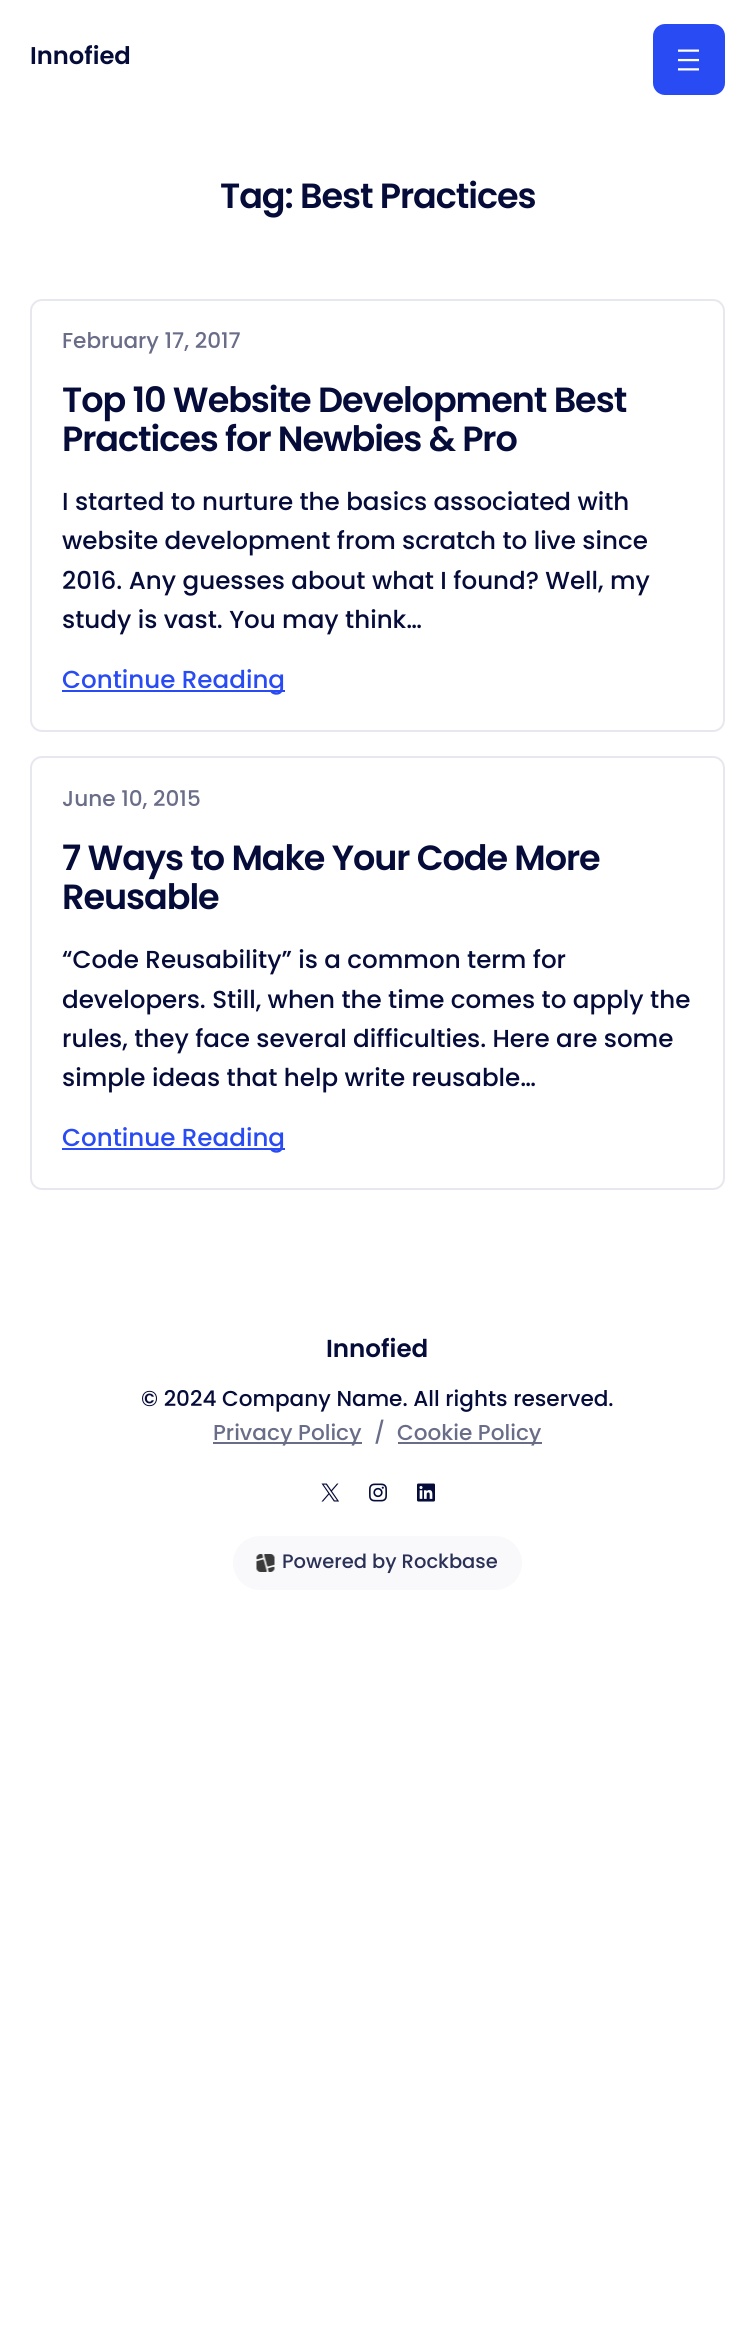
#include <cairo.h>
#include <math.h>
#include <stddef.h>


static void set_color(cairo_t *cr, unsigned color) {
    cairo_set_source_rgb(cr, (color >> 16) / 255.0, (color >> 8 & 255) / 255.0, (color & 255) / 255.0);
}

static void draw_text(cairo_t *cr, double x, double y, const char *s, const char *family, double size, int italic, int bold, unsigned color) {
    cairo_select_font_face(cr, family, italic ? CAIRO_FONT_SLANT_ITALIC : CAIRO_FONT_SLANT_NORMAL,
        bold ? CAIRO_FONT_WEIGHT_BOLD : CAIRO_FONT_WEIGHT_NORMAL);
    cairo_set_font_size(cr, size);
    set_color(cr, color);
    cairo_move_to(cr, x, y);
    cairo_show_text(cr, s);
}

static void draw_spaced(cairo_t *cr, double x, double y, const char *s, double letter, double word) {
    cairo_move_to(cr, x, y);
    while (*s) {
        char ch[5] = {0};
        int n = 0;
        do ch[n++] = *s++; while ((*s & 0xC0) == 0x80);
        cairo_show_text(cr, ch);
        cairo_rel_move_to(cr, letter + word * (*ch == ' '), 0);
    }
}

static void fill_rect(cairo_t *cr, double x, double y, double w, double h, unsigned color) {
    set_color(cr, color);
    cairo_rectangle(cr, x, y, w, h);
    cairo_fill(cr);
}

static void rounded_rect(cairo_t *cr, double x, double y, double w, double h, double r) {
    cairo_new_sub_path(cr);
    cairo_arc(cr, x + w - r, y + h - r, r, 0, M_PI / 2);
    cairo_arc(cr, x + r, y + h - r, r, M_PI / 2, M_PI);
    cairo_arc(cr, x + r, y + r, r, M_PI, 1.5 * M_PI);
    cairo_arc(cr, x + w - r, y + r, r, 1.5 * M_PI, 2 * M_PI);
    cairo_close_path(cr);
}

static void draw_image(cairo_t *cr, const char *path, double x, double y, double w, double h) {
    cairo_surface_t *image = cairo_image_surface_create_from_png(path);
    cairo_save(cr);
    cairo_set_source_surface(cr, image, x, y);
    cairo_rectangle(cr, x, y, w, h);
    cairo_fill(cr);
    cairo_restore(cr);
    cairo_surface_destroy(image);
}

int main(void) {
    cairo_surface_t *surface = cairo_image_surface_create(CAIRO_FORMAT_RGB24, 754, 2336);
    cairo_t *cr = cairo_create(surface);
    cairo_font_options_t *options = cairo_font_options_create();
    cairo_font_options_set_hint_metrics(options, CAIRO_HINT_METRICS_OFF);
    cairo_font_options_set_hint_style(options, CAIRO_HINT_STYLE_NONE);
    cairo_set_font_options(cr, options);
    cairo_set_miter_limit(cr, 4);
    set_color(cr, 0xFFFFFF);
    cairo_paint(cr);
    draw_text(cr, 30, 64, "Innofied", "Poppins SemiBold", 24.25, 0, 0, 0x060C39);
    set_color(cr, 0x294BF3);
    rounded_rect(cr, 653, 24, 72, 71, 12);
    cairo_fill(cr);
    draw_image(cr, "assets/img1.png", 678, 49, 21, 22);
    cairo_set_font_size(cr, 35);
    set_color(cr, 0x060C39);
    draw_spaced(cr, 220, 208, "Tag: Best Practices", -1.05, 0);
    rounded_rect(cr, 31, 300, 693, 431, 11);
    set_color(cr, 0xE7E7EF);
    cairo_stroke(cr);
    draw_text(cr, 62, 348, "February 17, 2017", "Poppins Medium", 21.6, 0, 0, 0x6A6D88);
    cairo_select_font_face(cr, "Poppins SemiBold", CAIRO_FONT_SLANT_NORMAL, CAIRO_FONT_WEIGHT_NORMAL);
    cairo_set_font_size(cr, 35);
    set_color(cr, 0x060C39);
    draw_spaced(cr, 62, 412, "Top 10 Website Development Best", -1.05, 0);
    draw_spaced(cr, 62, 451, "Practices for Newbies & Pro", -1.05, 0);
    draw_text(cr, 62, 510, "I started to nurture the basics associated with", "Poppins Medium", 24.6, 0, 0, 0x060C39);
    draw_text(cr, 62, 549, "website development from scratch to live since", "Poppins Medium", 24.6, 0, 0, 0x060C39);
    draw_text(cr, 62, 589, "2016. Any guesses about what I found? Well, my", "Poppins Medium", 24.6, 0, 0, 0x060C39);
    draw_text(cr, 62, 628, "study is vast. You may think…", "Poppins Medium", 24.6, 0, 0, 0x060C39);
    fill_rect(cr, 62, 690, 223, 2, 0x294BF3);
    draw_text(cr, 62, 688, "Continue Reading", "Poppins Medium", 24.6, 0, 0, 0x294BF3);
    rounded_rect(cr, 31, 757, 693, 432, 11);
    set_color(cr, 0xE7E7EF);
    cairo_stroke(cr);
    draw_text(cr, 62, 806, "June 10, 2015", "Poppins Medium", 21.6, 0, 0, 0x6A6D88);
    cairo_select_font_face(cr, "Poppins SemiBold", CAIRO_FONT_SLANT_NORMAL, CAIRO_FONT_WEIGHT_NORMAL);
    cairo_set_font_size(cr, 35);
    set_color(cr, 0x060C39);
    draw_spaced(cr, 62, 870, "7 Ways to Make Your Code More", -1.05, 0);
    draw_spaced(cr, 62, 909, "Reusable", -1.05, 0);
    draw_text(cr, 62, 968, "“Code Reusability” is a common term for", "Poppins Medium", 24.6, 0, 0, 0x060C39);
    draw_text(cr, 62, 1008, "developers. Still, when the time comes to apply the", "Poppins Medium", 24.6, 0, 0, 0x060C39);
    draw_text(cr, 62, 1047, "rules, they face several difficulties. Here are some", "Poppins Medium", 24.6, 0, 0, 0x060C39);
    draw_text(cr, 62, 1086, "simple ideas that help write reusable…", "Poppins Medium", 24.6, 0, 0, 0x060C39);
    fill_rect(cr, 62, 1148, 223, 2, 0x294BF3);
    draw_text(cr, 62, 1146, "Continue Reading", "Poppins Medium", 24.6, 0, 0, 0x294BF3);
    draw_text(cr, 326, 1357, "Innofied", "Poppins SemiBold", 24.6, 0, 0, 0x060C39);
    draw_text(cr, 141, 1406, "© 2024 Company Name. All rights reserved.", "Poppins Medium", 21.6, 0, 0, 0x060C39);
    fill_rect(cr, 213, 1442, 149, 2, 0x6A6D88);
    draw_text(cr, 213, 1440, "Privacy Policy", "Poppins Medium", 21.6, 0, 0, 0x6A6D88);
    draw_text(cr, 374, 1440, "/", "Poppins Medium", 21.6, 0, 0, 0x6A6D88);
    fill_rect(cr, 398, 1442, 144, 2, 0x6A6D88);
    draw_text(cr, 397, 1440, "Cookie Policy", "Poppins Medium", 21.6, 0, 0, 0x6A6D88);
    draw_image(cr, "assets/img2.png", 321, 1483, 18, 19);
    draw_image(cr, "assets/img3.png", 369, 1483, 18, 19);
    draw_image(cr, "assets/img4.png", 417, 1483, 18, 19);
    set_color(cr, 0xF9F9FB);
    rounded_rect(cr, 233, 1536, 289, 54, 27);
    cairo_fill(cr);
    draw_image(cr, "assets/img5.png", 256, 1554, 19, 18);
    draw_text(cr, 282, 1568, "Powered by Rockbase", "Poppins Medium", 19.5, 0, 0, 0x2A3056);
    cairo_surface_write_to_png(surface, "output.png");
    cairo_font_options_destroy(options);
    cairo_destroy(cr);
    cairo_surface_destroy(surface);
    return 0;
}
